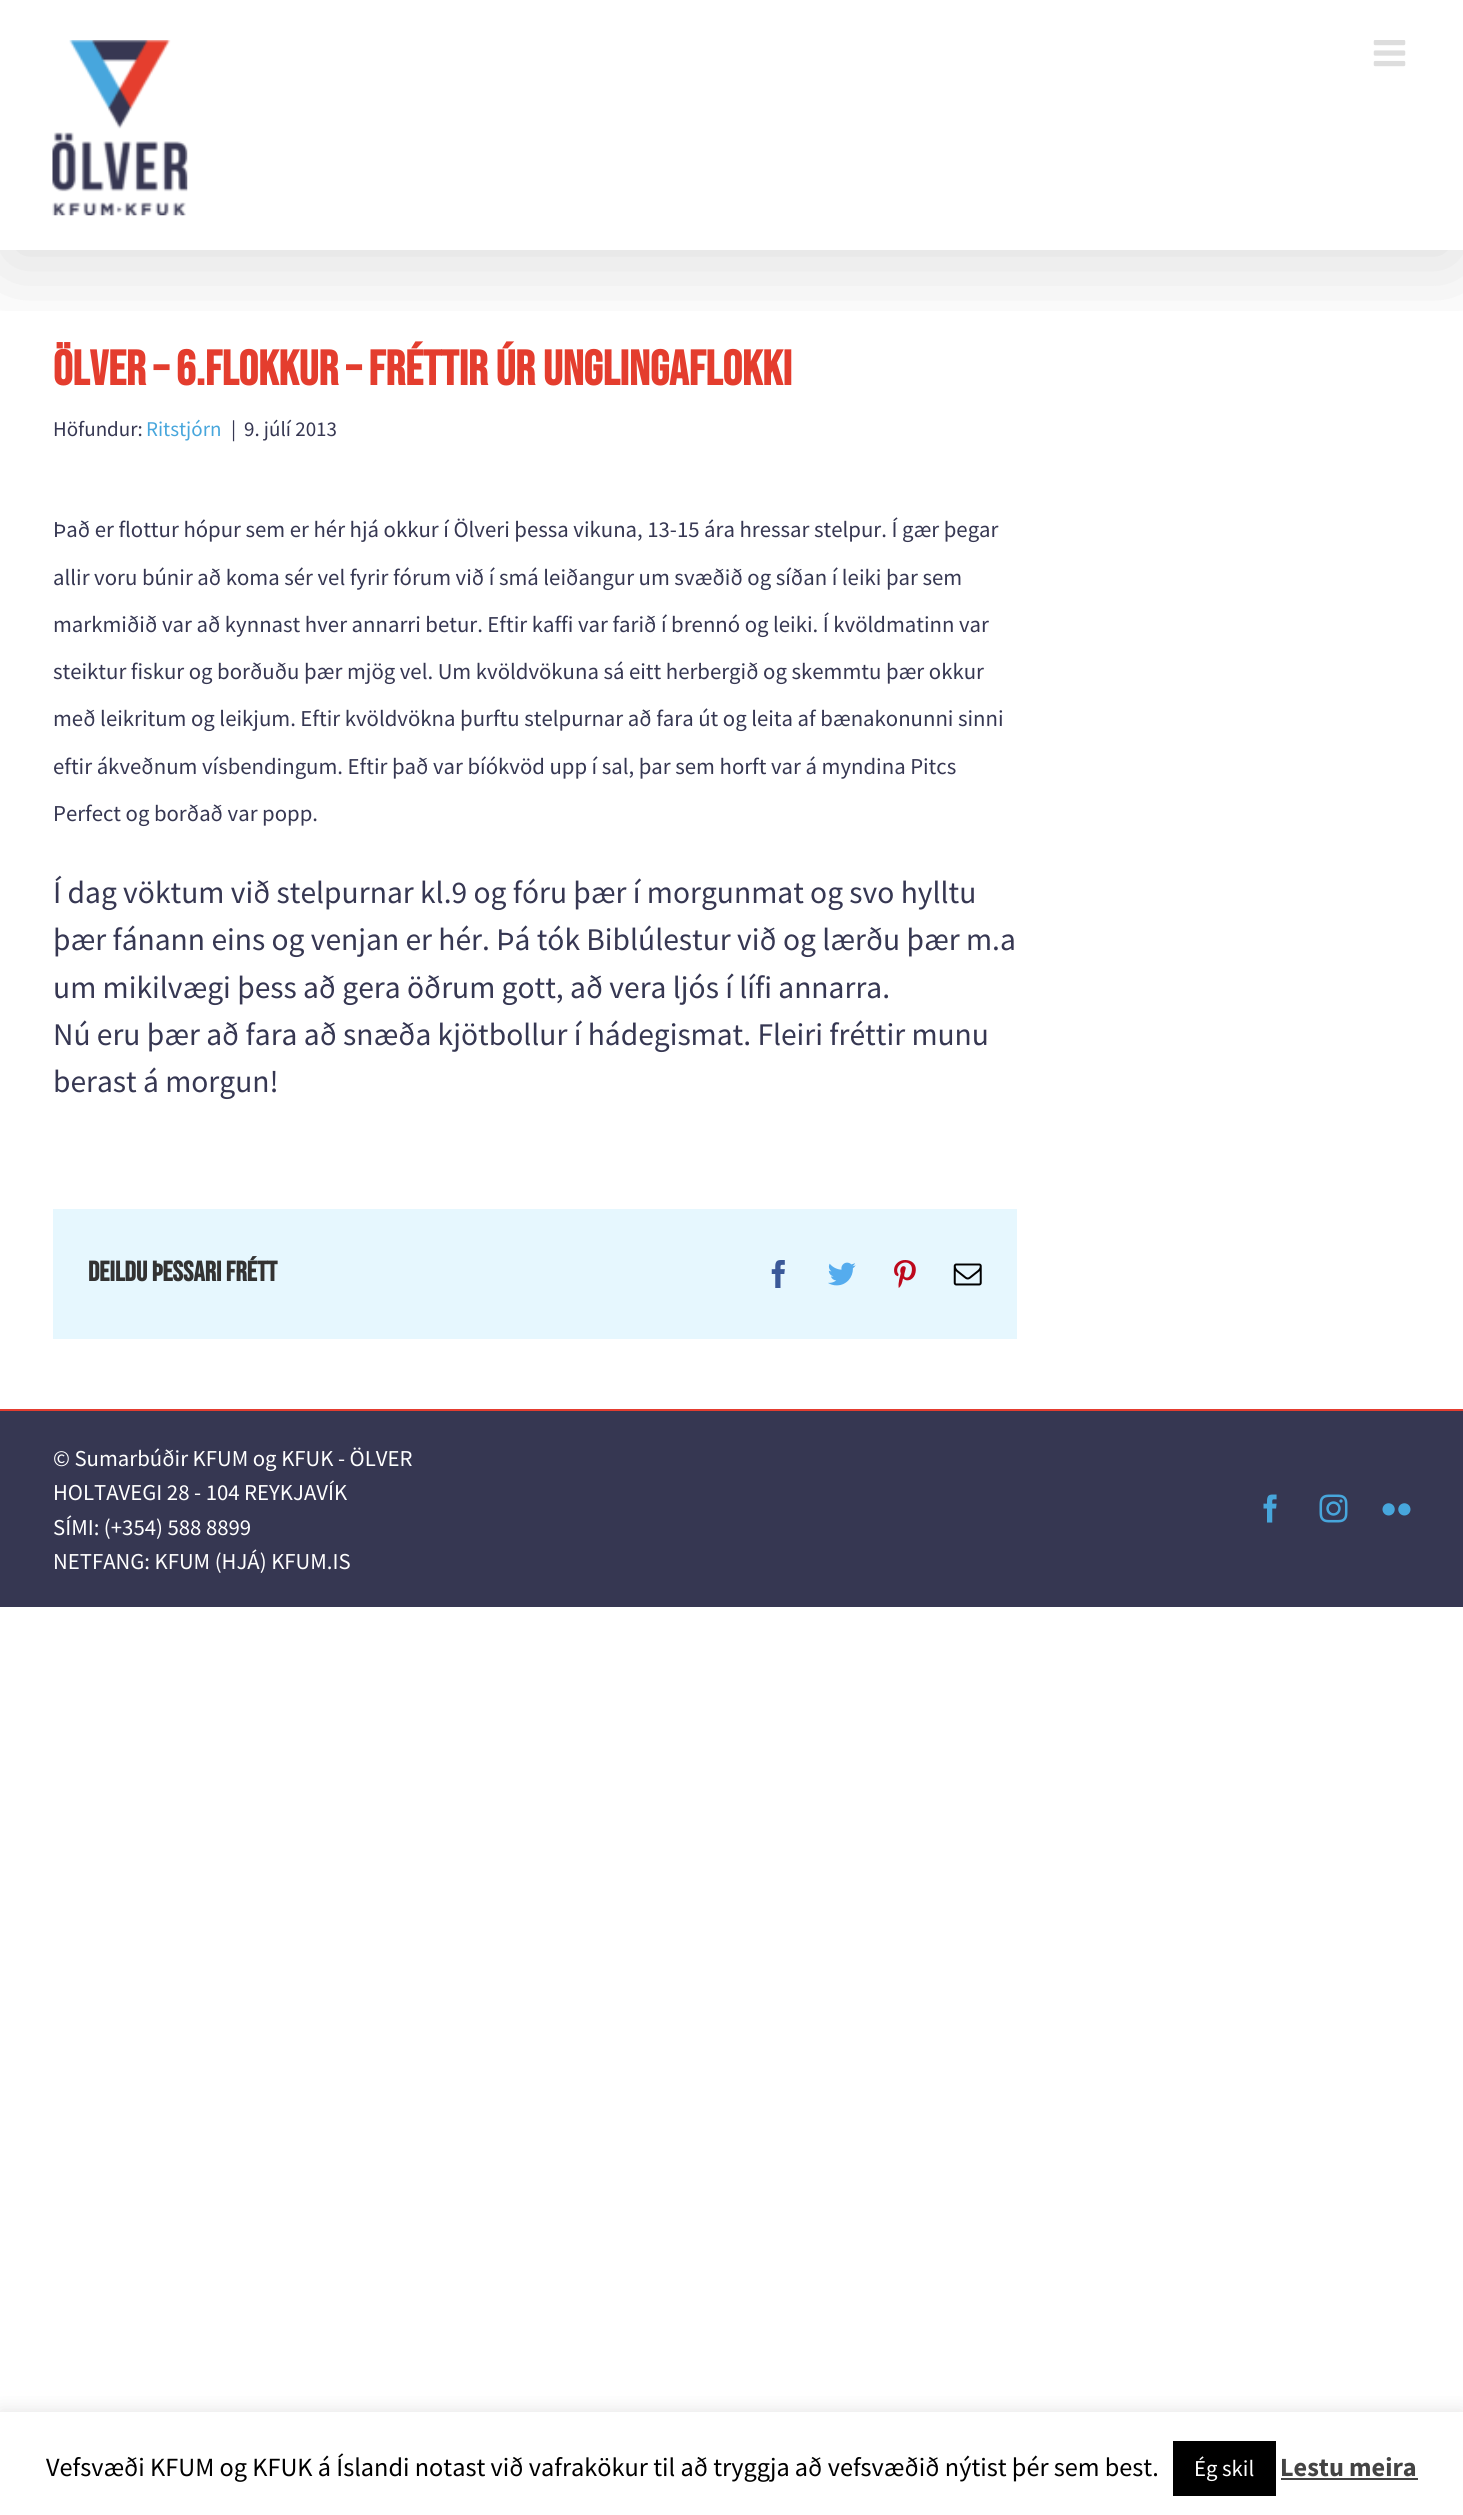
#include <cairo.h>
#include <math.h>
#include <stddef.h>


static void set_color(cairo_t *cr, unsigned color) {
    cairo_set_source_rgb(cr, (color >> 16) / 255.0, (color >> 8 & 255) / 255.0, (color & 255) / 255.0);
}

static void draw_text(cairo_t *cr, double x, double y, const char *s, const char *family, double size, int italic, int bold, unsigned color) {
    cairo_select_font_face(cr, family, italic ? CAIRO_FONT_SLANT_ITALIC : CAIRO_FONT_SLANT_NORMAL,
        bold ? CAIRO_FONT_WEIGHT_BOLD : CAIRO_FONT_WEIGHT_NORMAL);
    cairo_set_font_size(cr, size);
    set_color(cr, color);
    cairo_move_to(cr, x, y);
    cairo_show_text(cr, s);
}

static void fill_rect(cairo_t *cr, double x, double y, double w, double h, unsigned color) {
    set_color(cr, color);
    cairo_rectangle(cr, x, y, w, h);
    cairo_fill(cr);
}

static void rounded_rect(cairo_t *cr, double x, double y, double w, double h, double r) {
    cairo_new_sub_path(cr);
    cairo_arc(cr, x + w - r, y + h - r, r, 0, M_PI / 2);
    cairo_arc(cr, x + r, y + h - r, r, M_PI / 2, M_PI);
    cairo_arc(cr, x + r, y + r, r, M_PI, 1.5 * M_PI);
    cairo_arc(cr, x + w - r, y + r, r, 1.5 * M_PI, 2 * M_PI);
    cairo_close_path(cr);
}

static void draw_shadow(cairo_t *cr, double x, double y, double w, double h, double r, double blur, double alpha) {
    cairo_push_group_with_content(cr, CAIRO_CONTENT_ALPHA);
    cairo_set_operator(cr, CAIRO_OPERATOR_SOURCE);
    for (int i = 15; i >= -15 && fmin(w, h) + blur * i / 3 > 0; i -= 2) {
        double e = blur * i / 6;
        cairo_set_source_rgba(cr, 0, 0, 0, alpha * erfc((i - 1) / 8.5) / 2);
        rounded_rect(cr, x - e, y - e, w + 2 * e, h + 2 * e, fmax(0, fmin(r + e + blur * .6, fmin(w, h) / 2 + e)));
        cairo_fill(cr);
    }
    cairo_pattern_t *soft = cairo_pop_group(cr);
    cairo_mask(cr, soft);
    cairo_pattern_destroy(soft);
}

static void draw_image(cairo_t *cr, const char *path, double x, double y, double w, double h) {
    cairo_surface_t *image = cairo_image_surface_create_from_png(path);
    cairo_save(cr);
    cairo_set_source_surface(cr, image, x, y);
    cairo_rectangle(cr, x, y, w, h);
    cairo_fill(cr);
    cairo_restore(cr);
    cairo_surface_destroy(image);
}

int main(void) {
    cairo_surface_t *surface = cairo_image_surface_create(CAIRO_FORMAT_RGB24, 1463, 2515);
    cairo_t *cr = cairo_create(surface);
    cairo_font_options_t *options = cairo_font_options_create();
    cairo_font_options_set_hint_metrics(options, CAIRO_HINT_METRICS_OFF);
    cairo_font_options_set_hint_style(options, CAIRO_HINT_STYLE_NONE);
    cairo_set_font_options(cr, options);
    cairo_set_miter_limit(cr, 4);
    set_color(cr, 0xFFFFFF);
    cairo_paint(cr);
    cairo_save(cr);
    cairo_rectangle(cr, 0, 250, 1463, 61);
    cairo_clip(cr);
    set_color(cr, 0x000000);
    draw_shadow(cr, 4, 21, 1456, 243, 0, 44, 0.14);
    cairo_restore(cr);
    draw_image(cr, "assets/img1.png", 52, 40, 136, 176);
    draw_image(cr, "assets/img2.png", 1373, 40, 33, 27);
    draw_text(cr, 53, 385, "Ölver – 6.flokkur – Fréttir úr unglingaflokki", "Bebas Neue", 49, 0, 1, 0xE43D2E);
    draw_text(cr, 53, 436, "Höfundur:", "Source Sans Pro", 21, 0, 0, 0x363752);
    draw_text(cr, 146, 436, "Ritstjórn", "Source Sans Pro", 21, 0, 0, 0x47A6DC);
    draw_text(cr, 231, 436, "|", "Source Sans Pro", 21, 0, 0, 0x363752);
    draw_text(cr, 244, 436, "9. júlí 2013", "Source Sans Pro", 21, 0, 0, 0x363752);
    draw_text(cr, 53, 537, "Það er flottur hópur sem er hér hjá okkur í Ölveri þessa vikuna, 13-15 ára hressar stelpur. Í gær þegar", "Source Sans Pro", 22.75, 0, 0, 0x363752);
    draw_text(cr, 53, 585, "allir voru búnir að koma sér vel fyrir fórum við í smá leiðangur um svæðið og síðan í leiki þar sem", "Source Sans Pro", 22.75, 0, 0, 0x363752);
    draw_text(cr, 53, 632, "markmiðið var að kynnast hver annarri betur. Eftir kaffi var farið í brennó og leiki. Í kvöldmatinn var", "Source Sans Pro", 22.75, 0, 0, 0x363752);
    draw_text(cr, 53, 679, "steiktur fiskur og borðuðu þær mjög vel. Um kvöldvökuna sá eitt herbergið og skemmtu þær okkur", "Source Sans Pro", 22.75, 0, 0, 0x363752);
    draw_text(cr, 53, 726, "með leikritum og leikjum. Eftir kvöldvökna þurftu stelpurnar að fara út og leita af bænakonunni sinni", "Source Sans Pro", 22.75, 0, 0, 0x363752);
    draw_text(cr, 53, 774, "eftir ákveðnum vísbendingum. Eftir það var bíókvöd upp í sal, þar sem horft var á myndina Pitcs", "Source Sans Pro", 22.75, 0, 0, 0x363752);
    draw_text(cr, 53, 821, "Perfect og borðað var popp.", "Source Sans Pro", 22.75, 0, 0, 0x363752);
    draw_text(cr, 53, 903, "Í dag vöktum við stelpurnar kl.9 og fóru þær í morgunmat og svo hylltu", "Source Sans Pro", 31.5, 0, 0, 0x363752);
    draw_text(cr, 53, 950, "þær fánann eins og venjan er hér. Þá tók Biblúlestur við og lærðu þær m.a", "Source Sans Pro", 31.5, 0, 0, 0x363752);
    draw_text(cr, 53, 998, "um mikilvægi þess að gera öðrum gott, að vera ljós í lífi annarra.", "Source Sans Pro", 31.5, 0, 0, 0x363752);
    draw_text(cr, 53, 1045, "Nú eru þær að fara að snæða kjötbollur í hádegismat. Fleiri fréttir munu", "Source Sans Pro", 31.5, 0, 0, 0x363752);
    draw_text(cr, 53, 1092, "berast á morgun!", "Source Sans Pro", 31.5, 0, 0, 0x363752);
    fill_rect(cr, 53, 1209, 964, 130, 0xE6F7FE);
    draw_text(cr, 88, 1281, "Deildu þessari frétt", "Bebas Neue", 28, 0, 1, 0x333333);
    draw_image(cr, "assets/img3.png", 771, 1260, 14, 28);
    draw_image(cr, "assets/img4.png", 828, 1262, 28, 24);
    draw_image(cr, "assets/img5.png", 894, 1260, 22, 28);
    draw_image(cr, "assets/img6.png", 953, 1263, 29, 23);
    fill_rect(cr, 0, 1411, 1463, 196, 0x363752);
    fill_rect(cr, 0, 1409, 1463, 2, 0xE43D30);
    draw_text(cr, 53, 1466, "© Sumarbúðir KFUM og KFUK - ÖLVER", "Source Sans Pro", 22.75, 0, 0, 0xFFFFFF);
    draw_text(cr, 53, 1500, "HOLTAVEGI 28 - 104 REYKJAVÍK", "Source Sans Pro", 22.75, 0, 0, 0xFFFFFF);
    draw_text(cr, 53, 1535, "SÍMI: (+354) 588 8899", "Source Sans Pro", 22.75, 0, 0, 0xFFFFFF);
    draw_text(cr, 53, 1569, "NETFANG: KFUM (HJÁ) KFUM.IS", "Source Sans Pro", 22.75, 0, 0, 0xFFFFFF);
    draw_image(cr, "assets/img7.png", 1263, 1494, 14, 29);
    draw_image(cr, "assets/img8.png", 1319, 1494, 29, 29);
    draw_image(cr, "assets/img9.png", 1382, 1503, 29, 13);
    cairo_save(cr);
    cairo_rectangle(cr, 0, 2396, 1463, 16);
    cairo_clip(cr);
    set_color(cr, 0xACABAB);
    draw_shadow(cr, 0, 2410, 1463, 105, 0, 9, 0.3);
    cairo_restore(cr);
    draw_text(cr, 46, 2476, "Vefsvæði KFUM og KFUK á Íslandi notast við vafrakökur til að tryggja að vefsvæðið nýtist þér sem best.", "Source Sans Pro", 26.25, 0, 0, 0x000000);
    fill_rect(cr, 1173, 2441, 103, 55, 0x000000);
    draw_text(cr, 1194, 2476, "Ég skil", "Source Sans Pro", 22.75, 0, 0, 0xFFFFFF);
    draw_text(cr, 1280, 2476, "Lestu meira", "Source Sans Pro", 26.25, 0, 1, 0x444444);
    fill_rect(cr, 1281, 2478, 137, 2, 0x444444);
    cairo_surface_write_to_png(surface, "output.png");
    cairo_font_options_destroy(options);
    cairo_destroy(cr);
    cairo_surface_destroy(surface);
    return 0;
}
